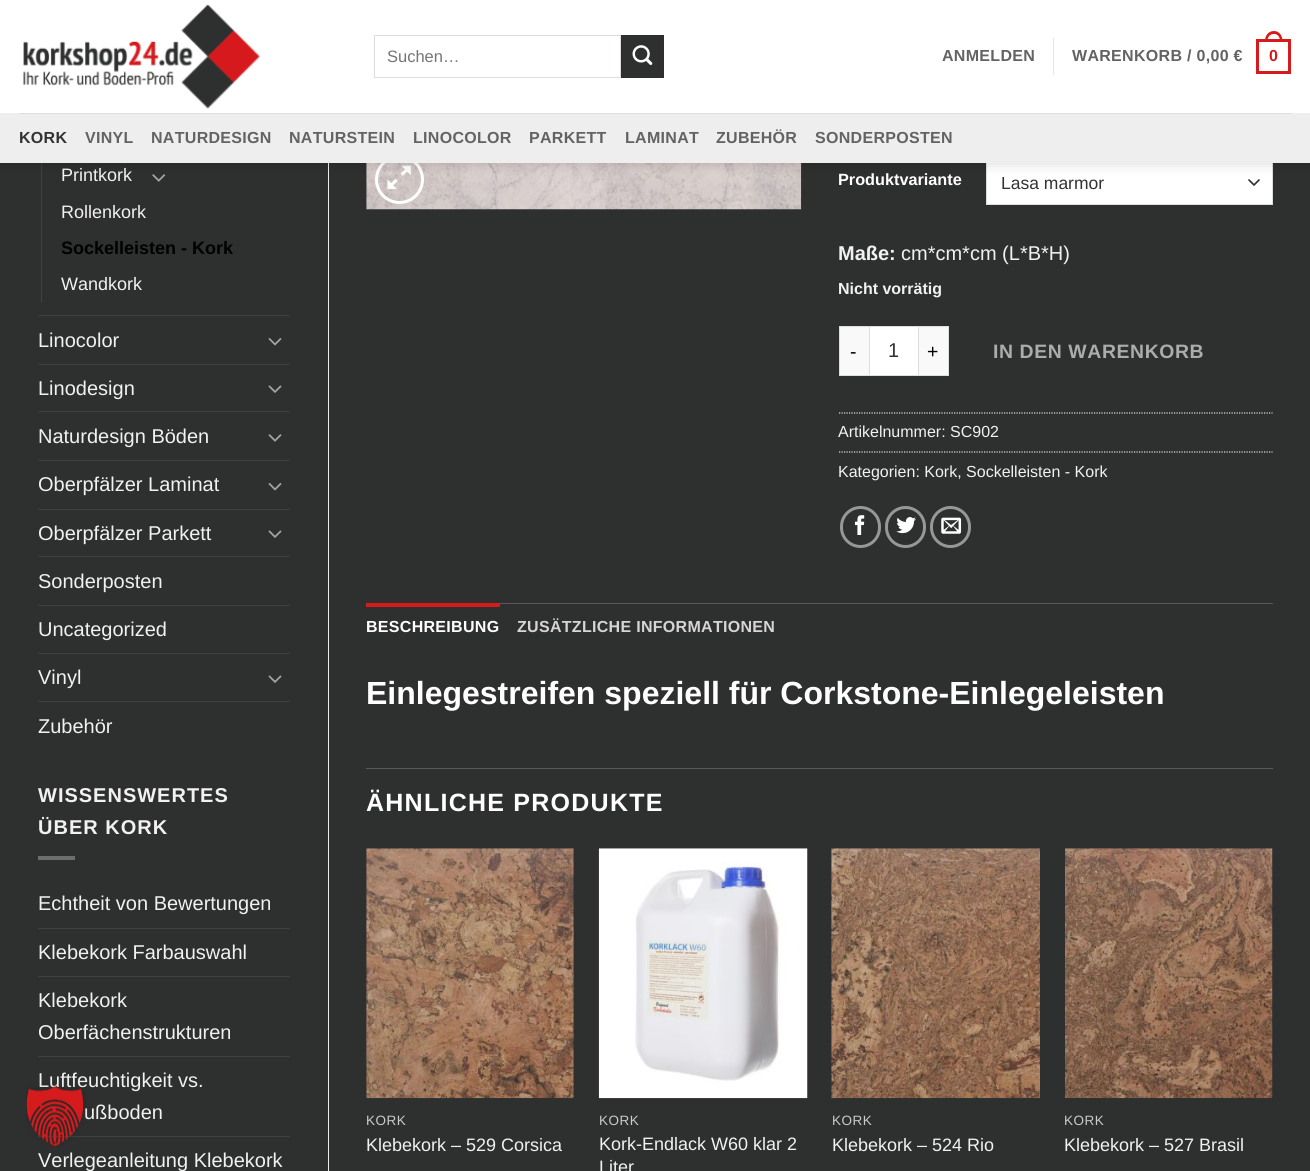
#include <cairo.h>
#include <math.h>
#include <stddef.h>


static void set_color(cairo_t *cr, unsigned color) {
    cairo_set_source_rgb(cr, (color >> 16) / 255.0, (color >> 8 & 255) / 255.0, (color & 255) / 255.0);
}

static void draw_text(cairo_t *cr, double x, double y, const char *s, const char *family, double size, int italic, int bold, unsigned color) {
    cairo_select_font_face(cr, family, italic ? CAIRO_FONT_SLANT_ITALIC : CAIRO_FONT_SLANT_NORMAL,
        bold ? CAIRO_FONT_WEIGHT_BOLD : CAIRO_FONT_WEIGHT_NORMAL);
    cairo_set_font_size(cr, size);
    set_color(cr, color);
    cairo_move_to(cr, x, y);
    cairo_show_text(cr, s);
}

static void draw_spaced(cairo_t *cr, double x, double y, const char *s, double letter, double word) {
    cairo_move_to(cr, x, y);
    while (*s) {
        char ch[5] = {0};
        int n = 0;
        do ch[n++] = *s++; while ((*s & 0xC0) == 0x80);
        cairo_show_text(cr, ch);
        cairo_rel_move_to(cr, letter + word * (*ch == ' '), 0);
    }
}

static void fill_rect(cairo_t *cr, double x, double y, double w, double h, unsigned color) {
    set_color(cr, color);
    cairo_rectangle(cr, x, y, w, h);
    cairo_fill(cr);
}

static void rounded_rect(cairo_t *cr, double x, double y, double w, double h, double r) {
    cairo_new_sub_path(cr);
    cairo_arc(cr, x + w - r, y + h - r, r, 0, M_PI / 2);
    cairo_arc(cr, x + r, y + h - r, r, M_PI / 2, M_PI);
    cairo_arc(cr, x + r, y + r, r, M_PI, 1.5 * M_PI);
    cairo_arc(cr, x + w - r, y + r, r, 1.5 * M_PI, 2 * M_PI);
    cairo_close_path(cr);
}

static void draw_shadow(cairo_t *cr, double x, double y, double w, double h, double r, double blur, double alpha) {
    cairo_push_group_with_content(cr, CAIRO_CONTENT_ALPHA);
    cairo_set_operator(cr, CAIRO_OPERATOR_SOURCE);
    for (int i = 15; i >= -15 && fmin(w, h) + blur * i / 3 > 0; i -= 2) {
        double e = blur * i / 6;
        cairo_set_source_rgba(cr, 0, 0, 0, alpha * erfc((i - 1) / 8.5) / 2);
        rounded_rect(cr, x - e, y - e, w + 2 * e, h + 2 * e, fmax(0, fmin(r + e + blur * .6, fmin(w, h) / 2 + e)));
        cairo_fill(cr);
    }
    cairo_pattern_t *soft = cairo_pop_group(cr);
    cairo_mask(cr, soft);
    cairo_pattern_destroy(soft);
}

static void draw_image(cairo_t *cr, const char *path, double x, double y, double w, double h) {
    cairo_surface_t *image = cairo_image_surface_create_from_png(path);
    cairo_save(cr);
    cairo_set_source_surface(cr, image, x, y);
    cairo_rectangle(cr, x, y, w, h);
    cairo_fill(cr);
    cairo_restore(cr);
    cairo_surface_destroy(image);
}

int main(void) {
    cairo_surface_t *surface = cairo_image_surface_create(CAIRO_FORMAT_RGB24, 1310, 1171);
    cairo_t *cr = cairo_create(surface);
    cairo_font_options_t *options = cairo_font_options_create();
    cairo_font_options_set_hint_metrics(options, CAIRO_HINT_METRICS_OFF);
    cairo_font_options_set_hint_style(options, CAIRO_HINT_STYLE_NONE);
    cairo_set_font_options(cr, options);
    cairo_set_miter_limit(cr, 4);
    set_color(cr, 0x2E2F2F);
    cairo_paint(cr);
    fill_rect(cr, 41, 163, 1, 140, 0x3F4040);
    draw_image(cr, "assets/img3.png", 152, 174, 14, 8);
    fill_rect(cr, 328, 163, 1, 1008, 0xECECEC);
    draw_image(cr, "assets/img8.png", 366, 163, 436, 47);
    cairo_arc(cr, 399.5, 179.5, 23, 0, 2 * M_PI);
    set_color(cr, 0xFFFFFF);
    cairo_set_line_width(cr, 3);
    cairo_stroke(cr);
    draw_image(cr, "assets/img7.png", 387, 165, 24, 24);
    fill_rect(cr, 987, 163, 285, 41, 0xFFFFFF);
    cairo_new_path(cr);
    cairo_move_to(cr, 1249, 180);
    cairo_line_to(cr, 1254, 185);
    cairo_line_to(cr, 1259, 180);
    set_color(cr, 0x333333);
    cairo_set_line_width(cr, 1.7);
    cairo_set_line_cap(cr, CAIRO_LINE_CAP_ROUND);
    cairo_set_line_join(cr, CAIRO_LINE_JOIN_ROUND);
    cairo_stroke(cr);
    cairo_rectangle(cr, 986.5, 161.5, 286, 43);
    set_color(cr, 0xDDDDDD);
    cairo_set_line_width(cr, 1);
    cairo_set_line_cap(cr, CAIRO_LINE_CAP_BUTT);
    cairo_set_line_join(cr, CAIRO_LINE_JOIN_MITER);
    cairo_stroke(cr);
    set_color(cr, 0x000000);
    draw_shadow(cr, 1, 1, 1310, 163, 0, 6, 0.15);
    fill_rect(cr, 0, 0, 1310, 113, 0xFFFFFF);
    draw_image(cr, "assets/img1.png", 23, 4, 238, 105);
    cairo_rectangle(cr, 374.5, 35.5, 246, 42);
    set_color(cr, 0xDDDDDD);
    cairo_stroke(cr);
    draw_text(cr, 387, 62, "Suchen…", "Liberation Sans", 16.5, 0, 0, 0x757575);
    set_color(cr, 0x2E2F2F);
    cairo_rectangle(cr, 621.5, 35.5, 42, 42);
    cairo_fill_preserve(cr);
    set_color(cr, 0x2C2D2D);
    cairo_stroke(cr);
    draw_image(cr, "assets/img2.png", 632, 45, 21, 20);
    cairo_select_font_face(cr, "Liberation Sans", CAIRO_FONT_SLANT_NORMAL, CAIRO_FONT_WEIGHT_BOLD);
    cairo_set_font_size(cr, 16);
    set_color(cr, 0x636363);
    draw_spaced(cr, 942, 61, "ANMELDEN", 0.3, 0);
    fill_rect(cr, 1053, 38, 1, 37, 0xE6E6E6);
    set_color(cr, 0x636363);
    draw_spaced(cr, 1072, 61, "WARENKORB / 0,00 €", 0.3, 0);
    cairo_rectangle(cr, 1257.5, 40.5, 32, 32);
    set_color(cr, 0xD51B1C);
    cairo_set_line_width(cr, 3);
    cairo_stroke(cr);
    cairo_set_fill_rule(cr, CAIRO_FILL_RULE_EVEN_ODD);
    cairo_new_path(cr);
    cairo_move_to(cr, 1274, 31);
    cairo_curve_to(cr, 1279.5, 31, 1282.5, 36, 1282.5, 41);
    cairo_line_to(cr, 1265, 41);
    cairo_curve_to(cr, 1265, 36, 1268, 31, 1274, 31);
    cairo_close_path(cr);
    cairo_move_to(cr, 1274, 34);
    cairo_curve_to(cr, 1278, 34, 1280, 37.5, 1280, 41);
    cairo_line_to(cr, 1267.5, 41);
    cairo_curve_to(cr, 1267.5, 37.5, 1269.5, 34, 1274, 34);
    cairo_close_path(cr);
    cairo_fill(cr);
    draw_spaced(cr, 1269, 61, "0", 0.3, 0);
    fill_rect(cr, 0, 113, 1310, 50, 0xEEEEEE);
    fill_rect(cr, 19, 113, 1272, 1, 0xDEDEDE);
    set_color(cr, 0x333333);
    draw_spaced(cr, 19, 143, "KORK", 0.3, 0);
    set_color(cr, 0x636363);
    draw_spaced(cr, 85, 143, "VINYL", 0.3, 0);
    draw_spaced(cr, 151, 143, "NATURDESIGN", 0.3, 0);
    draw_spaced(cr, 289, 143, "NATURSTEIN", 0.3, 0);
    draw_spaced(cr, 413, 143, "LINOCOLOR", 0.3, 0);
    draw_spaced(cr, 529, 143, "PARKETT", 0.3, 0);
    draw_spaced(cr, 625, 143, "LAMINAT", 0.3, 0);
    draw_spaced(cr, 716, 143, "ZUBEHÖR", 0.3, 0);
    draw_spaced(cr, 815, 143, "SONDERPOSTEN", 0.3, 0);
    draw_text(cr, 61, 181, "Printkork", "Liberation Sans", 18, 0, 0, 0xF1F1F1);
    draw_text(cr, 61, 218, "Rollenkork", "Liberation Sans", 18, 0, 0, 0xF1F1F1);
    draw_text(cr, 61, 254, "Sockelleisten - Kork", "Liberation Sans", 18, 0, 1, 0x000000);
    draw_text(cr, 61, 290, "Wandkork", "Liberation Sans", 18, 0, 0, 0xF1F1F1);
    fill_rect(cr, 38, 315, 252, 1, 0x3F4040);
    draw_text(cr, 38, 347, "Linocolor", "Liberation Sans", 20, 0, 0, 0xF1F1F1);
    draw_image(cr, "assets/img4.png", 268, 338, 14, 8);
    fill_rect(cr, 38, 364, 252, 1, 0x3F4040);
    draw_text(cr, 38, 395, "Linodesign", "Liberation Sans", 20, 0, 0, 0xF1F1F1);
    draw_image(cr, "assets/img5.png", 268, 385, 14, 8);
    fill_rect(cr, 38, 411, 252, 1, 0x3F4040);
    draw_text(cr, 38, 443, "Naturdesign Böden", "Liberation Sans", 20, 0, 0, 0xF1F1F1);
    draw_image(cr, "assets/img6.png", 268, 434, 14, 8);
    fill_rect(cr, 38, 460, 252, 1, 0x3F4040);
    draw_text(cr, 38, 491, "Oberpfälzer Laminat", "Liberation Sans", 20, 0, 0, 0xF1F1F1);
    draw_image(cr, "assets/img4.png", 268, 483, 14, 8);
    fill_rect(cr, 38, 509, 252, 1, 0x3F4040);
    draw_text(cr, 38, 540, "Oberpfälzer Parkett", "Liberation Sans", 20, 0, 0, 0xF1F1F1);
    draw_image(cr, "assets/img5.png", 268, 530, 14, 8);
    fill_rect(cr, 38, 556, 252, 1, 0x3F4040);
    draw_text(cr, 38, 588, "Sonderposten", "Liberation Sans", 20, 0, 0, 0xF1F1F1);
    fill_rect(cr, 38, 605, 252, 1, 0x3F4040);
    draw_text(cr, 38, 636, "Uncategorized", "Liberation Sans", 20, 0, 0, 0xF1F1F1);
    fill_rect(cr, 38, 653, 252, 1, 0x3F4040);
    draw_text(cr, 38, 684, "Vinyl", "Liberation Sans", 20, 0, 0, 0xF1F1F1);
    draw_image(cr, "assets/img5.png", 268, 675, 14, 8);
    fill_rect(cr, 38, 701, 252, 1, 0x3F4040);
    draw_text(cr, 38, 733, "Zubehör", "Liberation Sans", 20, 0, 0, 0xF1F1F1);
    cairo_select_font_face(cr, "Liberation Sans", CAIRO_FONT_SLANT_NORMAL, CAIRO_FONT_WEIGHT_BOLD);
    draw_spaced(cr, 38, 802, "WISSENSWERTES", 1, 0);
    draw_spaced(cr, 38, 834, "ÜBER KORK", 1, 0);
    fill_rect(cr, 38, 856, 37, 4, 0x6D6D6D);
    draw_text(cr, 38, 910, "Echtheit von Bewertungen", "Liberation Sans", 20, 0, 0, 0xF1F1F1);
    fill_rect(cr, 38, 928, 252, 1, 0x3F4040);
    draw_text(cr, 38, 959, "Klebekork Farbauswahl", "Liberation Sans", 20, 0, 0, 0xF1F1F1);
    fill_rect(cr, 38, 976, 252, 1, 0x3F4040);
    draw_text(cr, 38, 1007, "Klebekork", "Liberation Sans", 20, 0, 0, 0xF1F1F1);
    draw_text(cr, 38, 1039, "Oberfächenstrukturen", "Liberation Sans", 20, 0, 0, 0xF1F1F1);
    fill_rect(cr, 38, 1056, 252, 1, 0x3F4040);
    draw_text(cr, 38, 1087, "Luftfeuchtigkeit vs.", "Liberation Sans", 20, 0, 0, 0xF1F1F1);
    draw_text(cr, 84, 1119, "ußboden", "Liberation Sans", 20, 0, 0, 0xF1F1F1);
    fill_rect(cr, 38, 1136, 252, 1, 0x3F4040);
    draw_text(cr, 38, 1167, "Verlegeanleitung Klebekork", "Liberation Sans", 20, 0, 0, 0xF1F1F1);
    draw_text(cr, 838, 185, "Produktvariante", "Liberation Sans", 16.25, 0, 1, 0xFFFFFF);
    draw_text(cr, 1001, 189, "Lasa marmor", "Liberation Sans", 17.5, 0, 0, 0x333333);
    draw_text(cr, 838, 260, "Maße:", "Liberation Sans", 20, 0, 1, 0xF1F1F1);
    draw_text(cr, 901, 260, "cm*cm*cm (L*B*H)", "Liberation Sans", 20, 0, 0, 0xF1F1F1);
    draw_text(cr, 838, 294, "Nicht vorrätig", "Liberation Sans", 16, 0, 1, 0xF1F1F1);
    fill_rect(cr, 840, 327, 29, 48, 0xF9F9F9);
    fill_rect(cr, 839, 326, 30, 1, 0xDDDDDD);
    fill_rect(cr, 839, 375, 30, 1, 0xDDDDDD);
    fill_rect(cr, 839, 326, 1, 50, 0xDDDDDD);
    cairo_select_font_face(cr, "Liberation Sans", CAIRO_FONT_SLANT_NORMAL, CAIRO_FONT_WEIGHT_NORMAL);
    cairo_set_font_size(cr, 19.4);
    set_color(cr, 0x000000);
    draw_spaced(cr, 850, 358, "-", 0.6, 0);
    set_color(cr, 0xFFFFFF);
    cairo_rectangle(cr, 869.5, 326.5, 49, 49);
    cairo_fill_preserve(cr);
    set_color(cr, 0xDDDDDD);
    cairo_set_line_width(cr, 1);
    cairo_stroke(cr);
    draw_text(cr, 888, 357, "1", "Liberation Sans", 20, 0, 0, 0x333333);
    fill_rect(cr, 919, 327, 29, 48, 0xF9F9F9);
    fill_rect(cr, 919, 326, 30, 1, 0xDDDDDD);
    fill_rect(cr, 948, 326, 1, 50, 0xDDDDDD);
    fill_rect(cr, 919, 375, 30, 1, 0xDDDDDD);
    cairo_set_font_size(cr, 19.4);
    set_color(cr, 0x000000);
    draw_spaced(cr, 927, 358, "+", 0.6, 0);
    cairo_select_font_face(cr, "Liberation Sans", CAIRO_FONT_SLANT_NORMAL, CAIRO_FONT_WEIGHT_BOLD);
    set_color(cr, 0xABACAC);
    draw_spaced(cr, 993, 358, "IN DEN WARENKORB", 0.6, 0);
    cairo_new_path(cr);
    cairo_move_to(cr, 839, 413);
    cairo_line_to(cr, 1272.5, 413);
    set_color(cr, 0xDDDDDD);
    cairo_set_line_width(cr, 1.2);
    cairo_set_dash(cr, (double[]){1.25, 1.25}, 2, 0);
    cairo_stroke(cr);
    draw_text(cr, 838, 437, "Artikelnummer: SC902", "Liberation Sans", 16, 0, 0, 0xF1F1F1);
    cairo_new_path(cr);
    cairo_move_to(cr, 839, 452);
    cairo_line_to(cr, 1272.5, 452);
    set_color(cr, 0xDDDDDD);
    cairo_stroke(cr);
    draw_text(cr, 838, 477, "Kategorien: Kork, Sockelleisten - Kork", "Liberation Sans", 16, 0, 0, 0xF1F1F1);
    rounded_rect(cr, 841.5, 507.5, 38, 39, 19);
    set_color(cr, 0x979797);
    cairo_set_line_width(cr, 3);
    cairo_set_dash(cr, NULL, 0, 0);
    cairo_stroke(cr);
    draw_image(cr, "assets/img9.png", 854, 515, 11, 20);
    rounded_rect(cr, 886.5, 507.5, 38, 39, 19);
    cairo_stroke(cr);
    draw_image(cr, "assets/img10.png", 896, 517, 20, 17);
    rounded_rect(cr, 931.5, 507.5, 38, 39, 19);
    cairo_stroke(cr);
    draw_image(cr, "assets/img11.png", 941, 517, 21, 17);
    fill_rect(cr, 500, 603, 773, 1, 0x585959);
    fill_rect(cr, 366, 603, 134, 4, 0xD51B1C);
    cairo_select_font_face(cr, "Liberation Sans", CAIRO_FONT_SLANT_NORMAL, CAIRO_FONT_WEIGHT_BOLD);
    set_color(cr, 0xFFFFFF);
    draw_spaced(cr, 366, 632, "BESCHREIBUNG", 0.3, 0);
    set_color(cr, 0xD5D5D5);
    draw_spaced(cr, 517, 632, "ZUSÄTZLICHE INFORMATIONEN", 0.3, 0);
    draw_text(cr, 366, 704, "Einlegestreifen speziell für Corkstone-Einlegeleisten", "Liberation Sans", 32, 0, 1, 0xFFFFFF);
    fill_rect(cr, 366, 768, 907, 1, 0x585959);
    cairo_set_font_size(cr, 25);
    set_color(cr, 0xFFFFFF);
    draw_spaced(cr, 366, 811, "ÄHNLICHE PRODUKTE", 1.25, 0);
    draw_image(cr, "assets/img12.png", 366, 848, 208, 251);
    cairo_select_font_face(cr, "Liberation Sans", CAIRO_FONT_SLANT_NORMAL, CAIRO_FONT_WEIGHT_NORMAL);
    cairo_set_font_size(cr, 13.5);
    set_color(cr, 0xCACACA);
    draw_spaced(cr, 366, 1125, "KORK", 0.5, 0);
    draw_text(cr, 366, 1151, "Klebekork – 529 Corsica", "Liberation Sans", 18, 0, 0, 0xF1F1F1);
    draw_image(cr, "assets/img13.png", 598, 848, 210, 251);
    cairo_set_font_size(cr, 13.5);
    set_color(cr, 0xCACACA);
    draw_spaced(cr, 599, 1125, "KORK", 0.5, 0);
    draw_text(cr, 599, 1150, "Kork-Endlack W60 klar 2", "Liberation Sans", 18, 0, 0, 0xF1F1F1);
    draw_text(cr, 599, 1173, "Liter", "Liberation Sans", 18, 0, 0, 0xF1F1F1);
    draw_image(cr, "assets/img14.png", 831, 848, 209, 251);
    cairo_set_font_size(cr, 13.5);
    set_color(cr, 0xCACACA);
    draw_spaced(cr, 832, 1125, "KORK", 0.5, 0);
    draw_text(cr, 832, 1151, "Klebekork – 524 Rio", "Liberation Sans", 18, 0, 0, 0xF1F1F1);
    draw_image(cr, "assets/img15.png", 1065, 848, 208, 251);
    cairo_set_font_size(cr, 13.5);
    set_color(cr, 0xCACACA);
    draw_spaced(cr, 1064, 1125, "KORK", 0.5, 0);
    draw_text(cr, 1064, 1151, "Klebekork – 527 Brasil", "Liberation Sans", 18, 0, 0, 0xF1F1F1);
    draw_image(cr, "assets/img16.png", 26, 1083, 61, 64);
    cairo_surface_write_to_png(surface, "output.png");
    cairo_font_options_destroy(options);
    cairo_destroy(cr);
    cairo_surface_destroy(surface);
    return 0;
}
